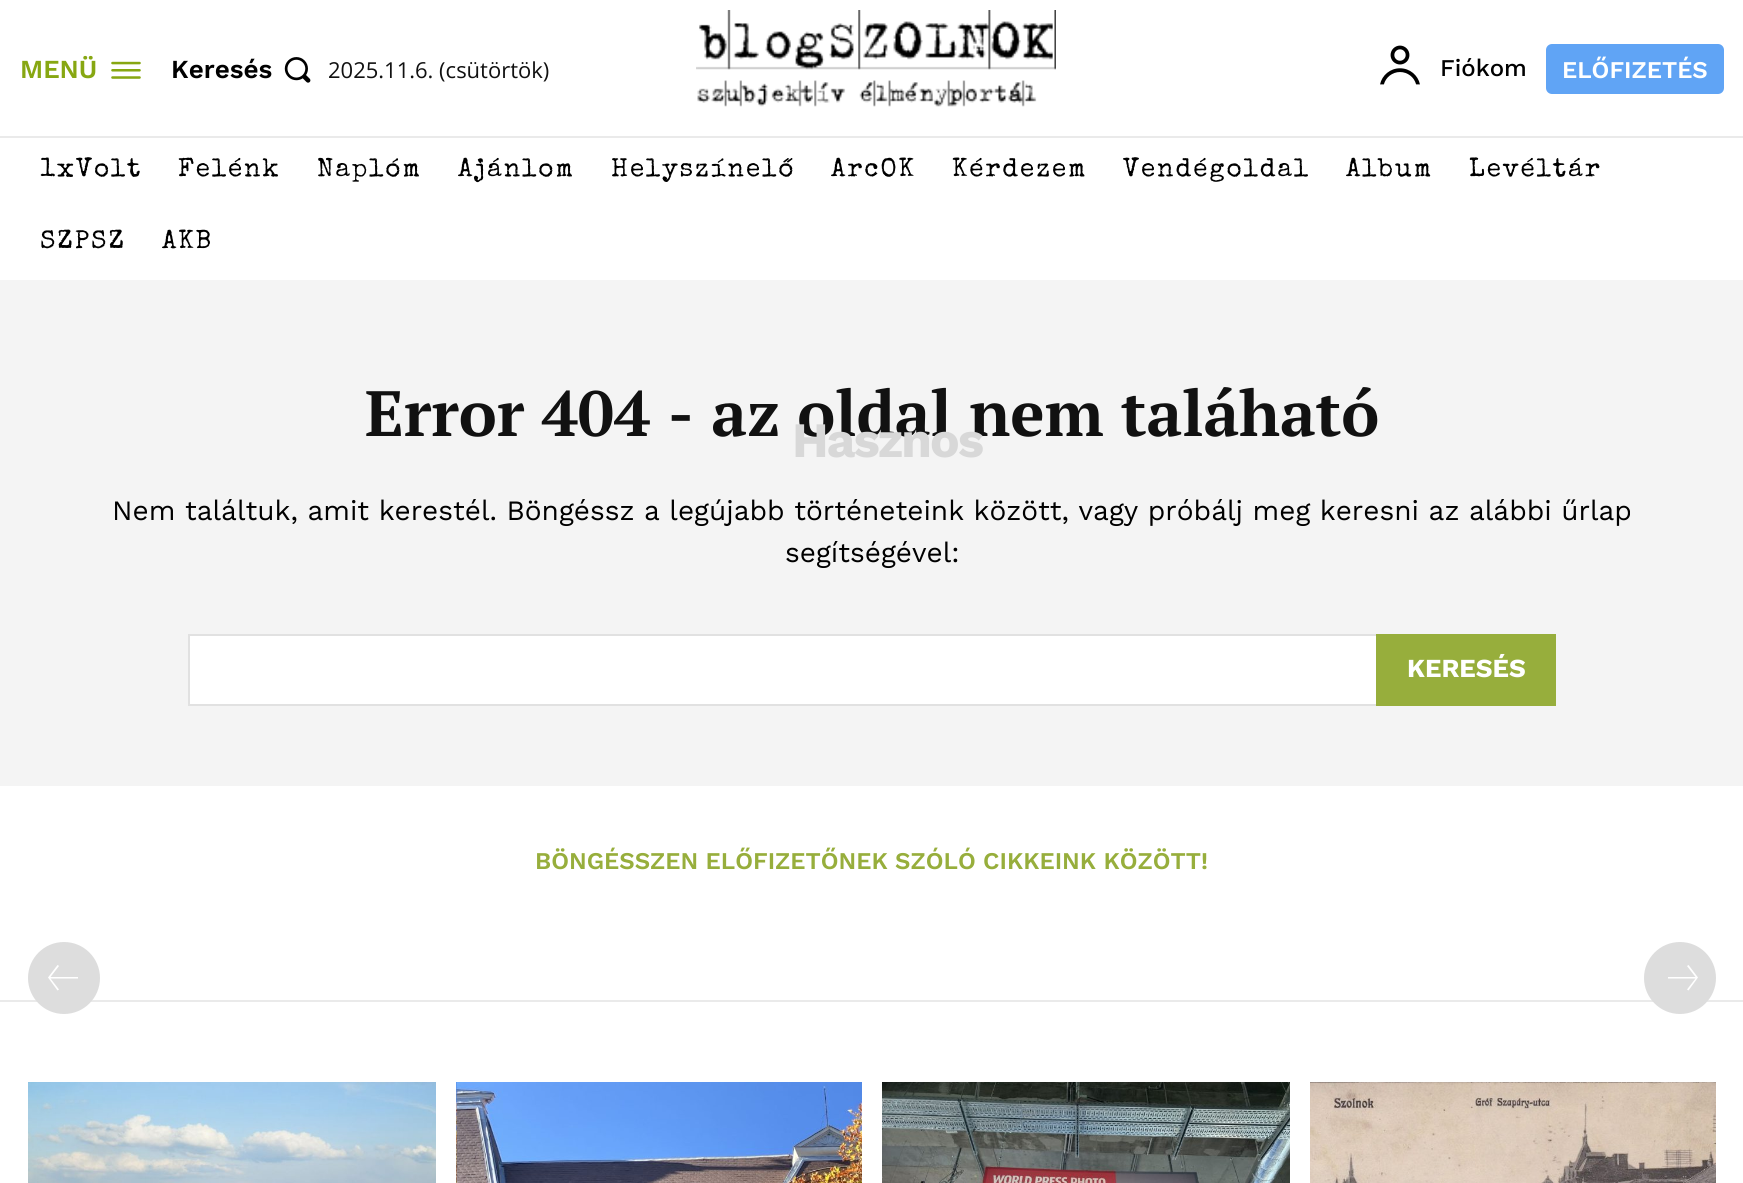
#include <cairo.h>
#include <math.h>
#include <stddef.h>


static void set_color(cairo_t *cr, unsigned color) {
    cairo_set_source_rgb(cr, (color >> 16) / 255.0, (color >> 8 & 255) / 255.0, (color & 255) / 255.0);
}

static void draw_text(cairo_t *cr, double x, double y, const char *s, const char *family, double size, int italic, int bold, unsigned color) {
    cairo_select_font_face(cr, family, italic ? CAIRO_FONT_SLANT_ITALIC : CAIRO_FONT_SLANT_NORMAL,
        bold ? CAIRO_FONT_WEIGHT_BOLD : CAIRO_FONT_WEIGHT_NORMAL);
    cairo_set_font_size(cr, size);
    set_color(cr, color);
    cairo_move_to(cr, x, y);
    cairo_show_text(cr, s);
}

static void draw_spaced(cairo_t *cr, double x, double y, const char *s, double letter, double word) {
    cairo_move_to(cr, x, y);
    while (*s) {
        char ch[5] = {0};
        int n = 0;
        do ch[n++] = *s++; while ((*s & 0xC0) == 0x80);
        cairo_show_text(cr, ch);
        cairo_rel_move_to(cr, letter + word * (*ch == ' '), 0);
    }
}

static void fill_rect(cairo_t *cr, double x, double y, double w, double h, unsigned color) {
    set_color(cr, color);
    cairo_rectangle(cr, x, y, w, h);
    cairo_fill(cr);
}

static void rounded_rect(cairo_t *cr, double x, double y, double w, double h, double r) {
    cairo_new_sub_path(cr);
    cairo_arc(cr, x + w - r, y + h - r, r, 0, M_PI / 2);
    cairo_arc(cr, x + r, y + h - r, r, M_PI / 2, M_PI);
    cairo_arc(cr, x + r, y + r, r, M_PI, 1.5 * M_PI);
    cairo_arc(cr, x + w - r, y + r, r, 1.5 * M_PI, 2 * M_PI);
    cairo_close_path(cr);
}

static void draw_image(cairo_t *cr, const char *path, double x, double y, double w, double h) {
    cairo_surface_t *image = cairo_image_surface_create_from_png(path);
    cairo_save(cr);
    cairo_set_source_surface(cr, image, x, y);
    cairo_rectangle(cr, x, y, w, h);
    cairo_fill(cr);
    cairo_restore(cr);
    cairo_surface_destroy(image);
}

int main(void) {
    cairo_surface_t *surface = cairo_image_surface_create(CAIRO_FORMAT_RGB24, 1743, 1183);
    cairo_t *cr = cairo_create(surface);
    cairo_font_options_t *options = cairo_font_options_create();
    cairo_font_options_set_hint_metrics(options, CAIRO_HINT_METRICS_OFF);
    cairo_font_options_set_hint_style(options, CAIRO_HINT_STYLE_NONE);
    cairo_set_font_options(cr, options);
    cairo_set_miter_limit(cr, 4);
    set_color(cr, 0xFFFFFF);
    cairo_paint(cr);
    draw_text(cr, 20, 78, "MENÜ", "Work Sans SemiBold", 26, 0, 0, 0x87A712);
    draw_image(cr, "assets/img1.png", 111, 61, 30, 18);
    draw_text(cr, 171, 78, "Keresés", "Work Sans SemiBold", 26, 0, 0, 0x000000);
    draw_image(cr, "assets/img2.png", 284, 57, 27, 26);
    draw_text(cr, 328, 78, "2025.11.6. (csütörtök)", "Open Sans", 22, 0, 0, 0x111111);
    draw_image(cr, "assets/img3.png", 696, 10, 360, 97);
    draw_image(cr, "assets/img4.png", 1380, 45, 40, 40);
    draw_text(cr, 1440, 76, "Fiókom", "Work Sans Medium", 24, 0, 0, 0x000000);
    set_color(cr, 0x60A4F5);
    rounded_rect(cr, 1546, 44, 178, 50, 6);
    cairo_fill(cr);
    draw_text(cr, 1562, 78, "ELŐFIZETÉS", "Work Sans SemiBold", 24, 0, 0, 0xFFFFFF);
    fill_rect(cr, 0, 136, 1743, 2, 0xEAEAEA);
    cairo_select_font_face(cr, "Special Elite", CAIRO_FONT_SLANT_NORMAL, CAIRO_FONT_WEIGHT_NORMAL);
    cairo_set_font_size(cr, 26);
    set_color(cr, 0x000000);
    draw_spaced(cr, 40, 176, "1xVolt", 2, 0);
    draw_spaced(cr, 178, 176, "Felénk", 2, 0);
    draw_spaced(cr, 317, 176, "Naplóm", 2, 0);
    draw_spaced(cr, 458, 176, "Ajánlom", 2, 0);
    draw_spaced(cr, 611, 176, "Helyszínelő", 2, 0);
    draw_spaced(cr, 831, 176, "ArcOK", 2, 0);
    draw_spaced(cr, 952, 176, "Kérdezem", 2, 0);
    draw_spaced(cr, 1123, 176, "Vendégoldal", 2, 0);
    draw_spaced(cr, 1346, 176, "Album", 2, 0);
    draw_spaced(cr, 1469, 176, "Levéltár", 2, 0);
    draw_spaced(cr, 40, 248, "SZPSZ", 2, 0);
    draw_spaced(cr, 162, 248, "AKB", 2, 0);
    fill_rect(cr, 0, 280, 1743, 506, 0xF4F4F4);
    draw_text(cr, 365, 436, "Error 404 - az oldal nem taláható", "PT Serif", 64, 0, 1, 0x111111);
    draw_text(cr, 112, 520, "Nem találtuk, amit kerestél. Böngéssz a legújabb történeteink között, vagy próbálj meg keresni az alábbi űrlap", "Work Sans", 28, 0, 0, 0x000000);
    draw_text(cr, 785, 562, "segítségével:", "Work Sans", 28, 0, 0, 0x000000);
    fill_rect(cr, 190, 636, 1186, 68, 0xFFFFFF);
    cairo_rectangle(cr, 189, 635, 1366, 70);
    set_color(cr, 0xE1E1E1);
    cairo_stroke(cr);
    fill_rect(cr, 1376, 634, 180, 72, 0x97AE3C);
    draw_text(cr, 1407, 677, "KERESÉS", "Work Sans", 26, 0, 1, 0xFFFFFF);
    draw_text(cr, 535, 869, "BÖNGÉSSZEN ELŐFIZETŐNEK SZÓLÓ CIKKEINK KÖZÖTT!", "Work Sans SemiBold", 24, 0, 0, 0x97AE3C);
    fill_rect(cr, 0, 1000, 1743, 2, 0xEAEAEA);
    set_color(cr, 0xDDDDDD);
    cairo_new_path(cr);
    cairo_arc(cr, 64, 978, 36, 0, 2 * M_PI);
    cairo_fill(cr);
    set_color(cr, 0xFFFFFF);
    cairo_new_path(cr);
    cairo_move_to(cr, 59, 989.5);
    cairo_line_to(cr, 50.5, 978.5);
    cairo_line_to(cr, 78, 978.5);
    cairo_line_to(cr, 78, 977);
    cairo_line_to(cr, 50.5, 977);
    cairo_line_to(cr, 59, 966);
    cairo_line_to(cr, 57.5, 965);
    cairo_line_to(cr, 48, 977.5);
    cairo_line_to(cr, 57.5, 990.5);
    cairo_close_path(cr);
    cairo_fill(cr);
    set_color(cr, 0xDDDDDD);
    cairo_arc(cr, 1680, 978, 36, 0, 2 * M_PI);
    cairo_fill(cr);
    set_color(cr, 0xFFFFFF);
    cairo_new_path(cr);
    cairo_move_to(cr, 1687, 989.5);
    cairo_line_to(cr, 1688.5, 990.5);
    cairo_line_to(cr, 1698, 977.5);
    cairo_line_to(cr, 1688.5, 965);
    cairo_line_to(cr, 1687, 966);
    cairo_line_to(cr, 1695.5, 977);
    cairo_line_to(cr, 1668, 977);
    cairo_line_to(cr, 1668, 978.5);
    cairo_line_to(cr, 1695.5, 978.5);
    cairo_close_path(cr);
    cairo_fill(cr);
    draw_image(cr, "assets/img5.png", 28, 1082, 408, 101);
    draw_image(cr, "assets/img6.png", 456, 1082, 406, 101);
    draw_image(cr, "assets/img7.png", 882, 1082, 408, 101);
    draw_image(cr, "assets/img8.png", 1310, 1082, 406, 101);
    cairo_select_font_face(cr, "Work Sans", CAIRO_FONT_SLANT_NORMAL, CAIRO_FONT_WEIGHT_BOLD);
    cairo_set_font_size(cr, 49.5);
    set_color(cr, 0xD8D8D8);
    draw_spaced(cr, 792, 457, "Hasznos", -2, 0);
    cairo_surface_write_to_png(surface, "output.png");
    cairo_font_options_destroy(options);
    cairo_destroy(cr);
    cairo_surface_destroy(surface);
    return 0;
}
